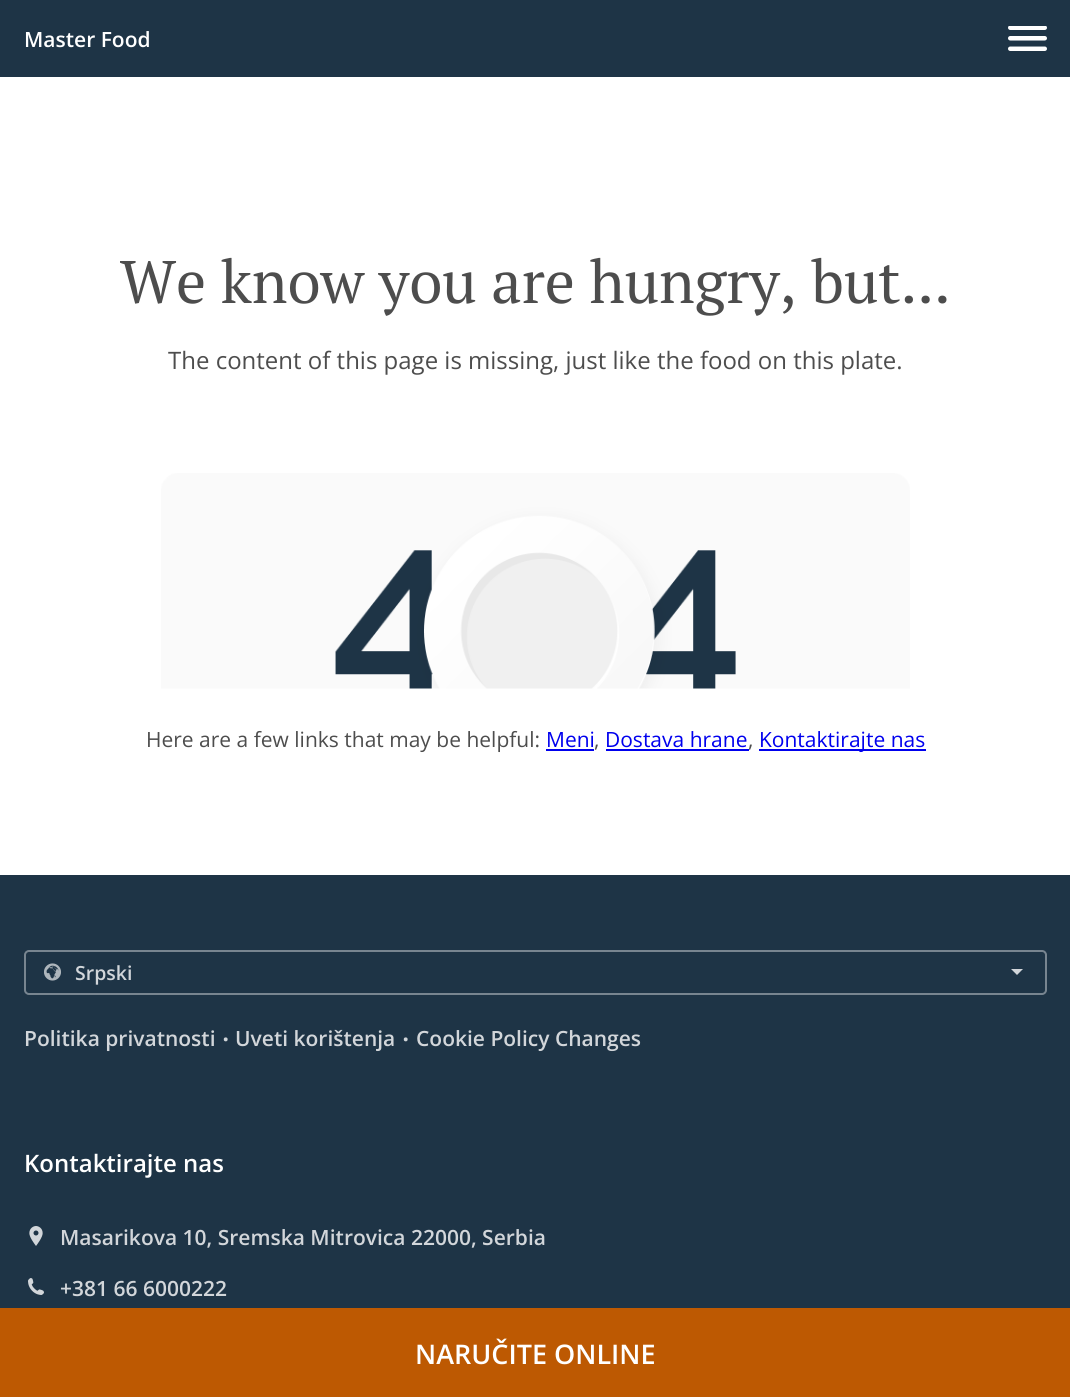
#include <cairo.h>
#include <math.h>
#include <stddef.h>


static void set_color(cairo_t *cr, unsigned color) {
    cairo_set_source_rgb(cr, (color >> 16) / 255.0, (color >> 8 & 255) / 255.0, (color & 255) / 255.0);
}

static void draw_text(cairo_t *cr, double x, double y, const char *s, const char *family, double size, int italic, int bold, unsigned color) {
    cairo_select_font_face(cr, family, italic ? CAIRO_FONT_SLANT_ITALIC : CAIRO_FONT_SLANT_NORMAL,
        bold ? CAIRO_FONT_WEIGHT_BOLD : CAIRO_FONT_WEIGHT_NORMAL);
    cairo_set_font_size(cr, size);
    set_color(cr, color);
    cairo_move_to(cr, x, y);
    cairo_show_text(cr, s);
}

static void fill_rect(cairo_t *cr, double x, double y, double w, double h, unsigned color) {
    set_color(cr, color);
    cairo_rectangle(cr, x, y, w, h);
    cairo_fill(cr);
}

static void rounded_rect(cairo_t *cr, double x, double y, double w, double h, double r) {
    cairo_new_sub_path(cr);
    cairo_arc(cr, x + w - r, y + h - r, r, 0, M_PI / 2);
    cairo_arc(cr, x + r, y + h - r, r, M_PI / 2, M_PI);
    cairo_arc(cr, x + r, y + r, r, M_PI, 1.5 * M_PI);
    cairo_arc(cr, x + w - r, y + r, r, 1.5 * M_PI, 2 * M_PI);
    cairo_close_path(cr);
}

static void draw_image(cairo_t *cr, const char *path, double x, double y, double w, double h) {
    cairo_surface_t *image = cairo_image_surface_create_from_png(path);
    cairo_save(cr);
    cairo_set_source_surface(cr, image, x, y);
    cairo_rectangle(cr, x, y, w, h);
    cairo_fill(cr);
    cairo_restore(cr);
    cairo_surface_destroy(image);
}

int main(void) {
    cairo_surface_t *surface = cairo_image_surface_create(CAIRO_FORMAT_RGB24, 1070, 1397);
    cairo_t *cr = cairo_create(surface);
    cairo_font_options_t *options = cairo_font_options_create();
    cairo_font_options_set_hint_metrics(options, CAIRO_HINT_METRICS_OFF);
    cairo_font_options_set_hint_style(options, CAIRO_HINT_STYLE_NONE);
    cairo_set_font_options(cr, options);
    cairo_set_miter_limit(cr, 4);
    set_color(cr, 0xFFFFFF);
    cairo_paint(cr);
    fill_rect(cr, 0, 0, 1070, 77, 0x1E3446);
    draw_text(cr, 24, 47, "Master Food", "Open Sans SemiBold", 21, 0, 0, 0xFFFFFF);
    draw_image(cr, "assets/img1.png", 1008, 26, 39, 25);
    draw_text(cr, 120, 303, "We know you are hungry, but...", "PT Serif", 60, 0, 0, 0x4D4D4D);
    draw_text(cr, 168, 369, "The content of this page is missing, just like the food on this plate.", "Open Sans", 24, 0, 0, 0x4D4D4D);
    draw_image(cr, "assets/img2.png", 161, 473, 749, 216);
    draw_text(cr, 146, 747, "Here are a few links that may be helpful:", "Open Sans", 21, 0, 0, 0x4D4D4D);
    draw_text(cr, 546, 747, "Meni", "Open Sans", 21, 0, 0, 0x0000EE);
    draw_text(cr, 594, 747, ",", "Open Sans", 21, 0, 0, 0x4D4D4D);
    fill_rect(cr, 546, 749, 48, 2, 0x0000EE);
    draw_text(cr, 605, 747, "Dostava hrane", "Open Sans", 21, 0, 0, 0x0000EE);
    fill_rect(cr, 606, 749, 143, 2, 0x0000EE);
    draw_text(cr, 748, 747, ",", "Open Sans", 21, 0, 0, 0x4D4D4D);
    fill_rect(cr, 759, 749, 167, 2, 0x0000EE);
    draw_text(cr, 759, 747, "Kontaktirajte nas", "Open Sans", 21, 0, 0, 0x0000EE);
    fill_rect(cr, 0, 875, 1070, 433, 0x1E3446);
    draw_image(cr, "assets/img3.png", 44, 963, 17, 18);
    rounded_rect(cr, 25, 951, 1021, 43, 4);
    set_color(cr, 0x788590);
    cairo_stroke(cr);
    draw_text(cr, 75, 980, "Srpski", "Open Sans SemiBold", 19.5, 0, 0, 0xD2D6DA);
    cairo_new_path(cr);
    cairo_move_to(cr, 1011, 969);
    cairo_line_to(cr, 1023, 969);
    cairo_line_to(cr, 1017, 975);
    cairo_close_path(cr);
    cairo_fill(cr);
    draw_text(cr, 24, 1046, "Politika privatnosti", "Open Sans SemiBold", 21, 0, 0, 0xD2D6DA);
    draw_text(cr, 222, 1041, ".", "Open Sans SemiBold", 27, 0, 0, 0xD2D6DA);
    draw_text(cr, 235, 1046, "Uveti korištenja", "Open Sans SemiBold", 21, 0, 0, 0xD2D6DA);
    draw_text(cr, 402, 1041, ".", "Open Sans SemiBold", 27, 0, 0, 0xD2D6DA);
    draw_text(cr, 416, 1046, "Cookie Policy Changes", "Open Sans SemiBold", 21, 0, 0, 0xD2D6DA);
    draw_text(cr, 24, 1172, "Kontaktirajte nas", "Open Sans SemiBold", 24, 0, 0, 0xFFFFFF);
    draw_image(cr, "assets/img4.png", 29, 1226, 14, 20);
    draw_text(cr, 60, 1245, "Masarikova 10, Sremska Mitrovica 22000, Serbia", "Open Sans SemiBold", 21, 0, 0, 0xD2D6DA);
    draw_image(cr, "assets/img5.png", 28, 1278, 16, 17);
    draw_text(cr, 60, 1296, "+381 66 6000222", "Open Sans SemiBold", 21, 0, 0, 0xD2D6DA);
    fill_rect(cr, 0, 1308, 1070, 89, 0xBD5902);
    draw_text(cr, 415, 1364, "NARUČITE ONLINE", "Open Sans SemiBold", 27, 0, 0, 0xFFFFFF);
    cairo_surface_write_to_png(surface, "output.png");
    cairo_font_options_destroy(options);
    cairo_destroy(cr);
    cairo_surface_destroy(surface);
    return 0;
}
